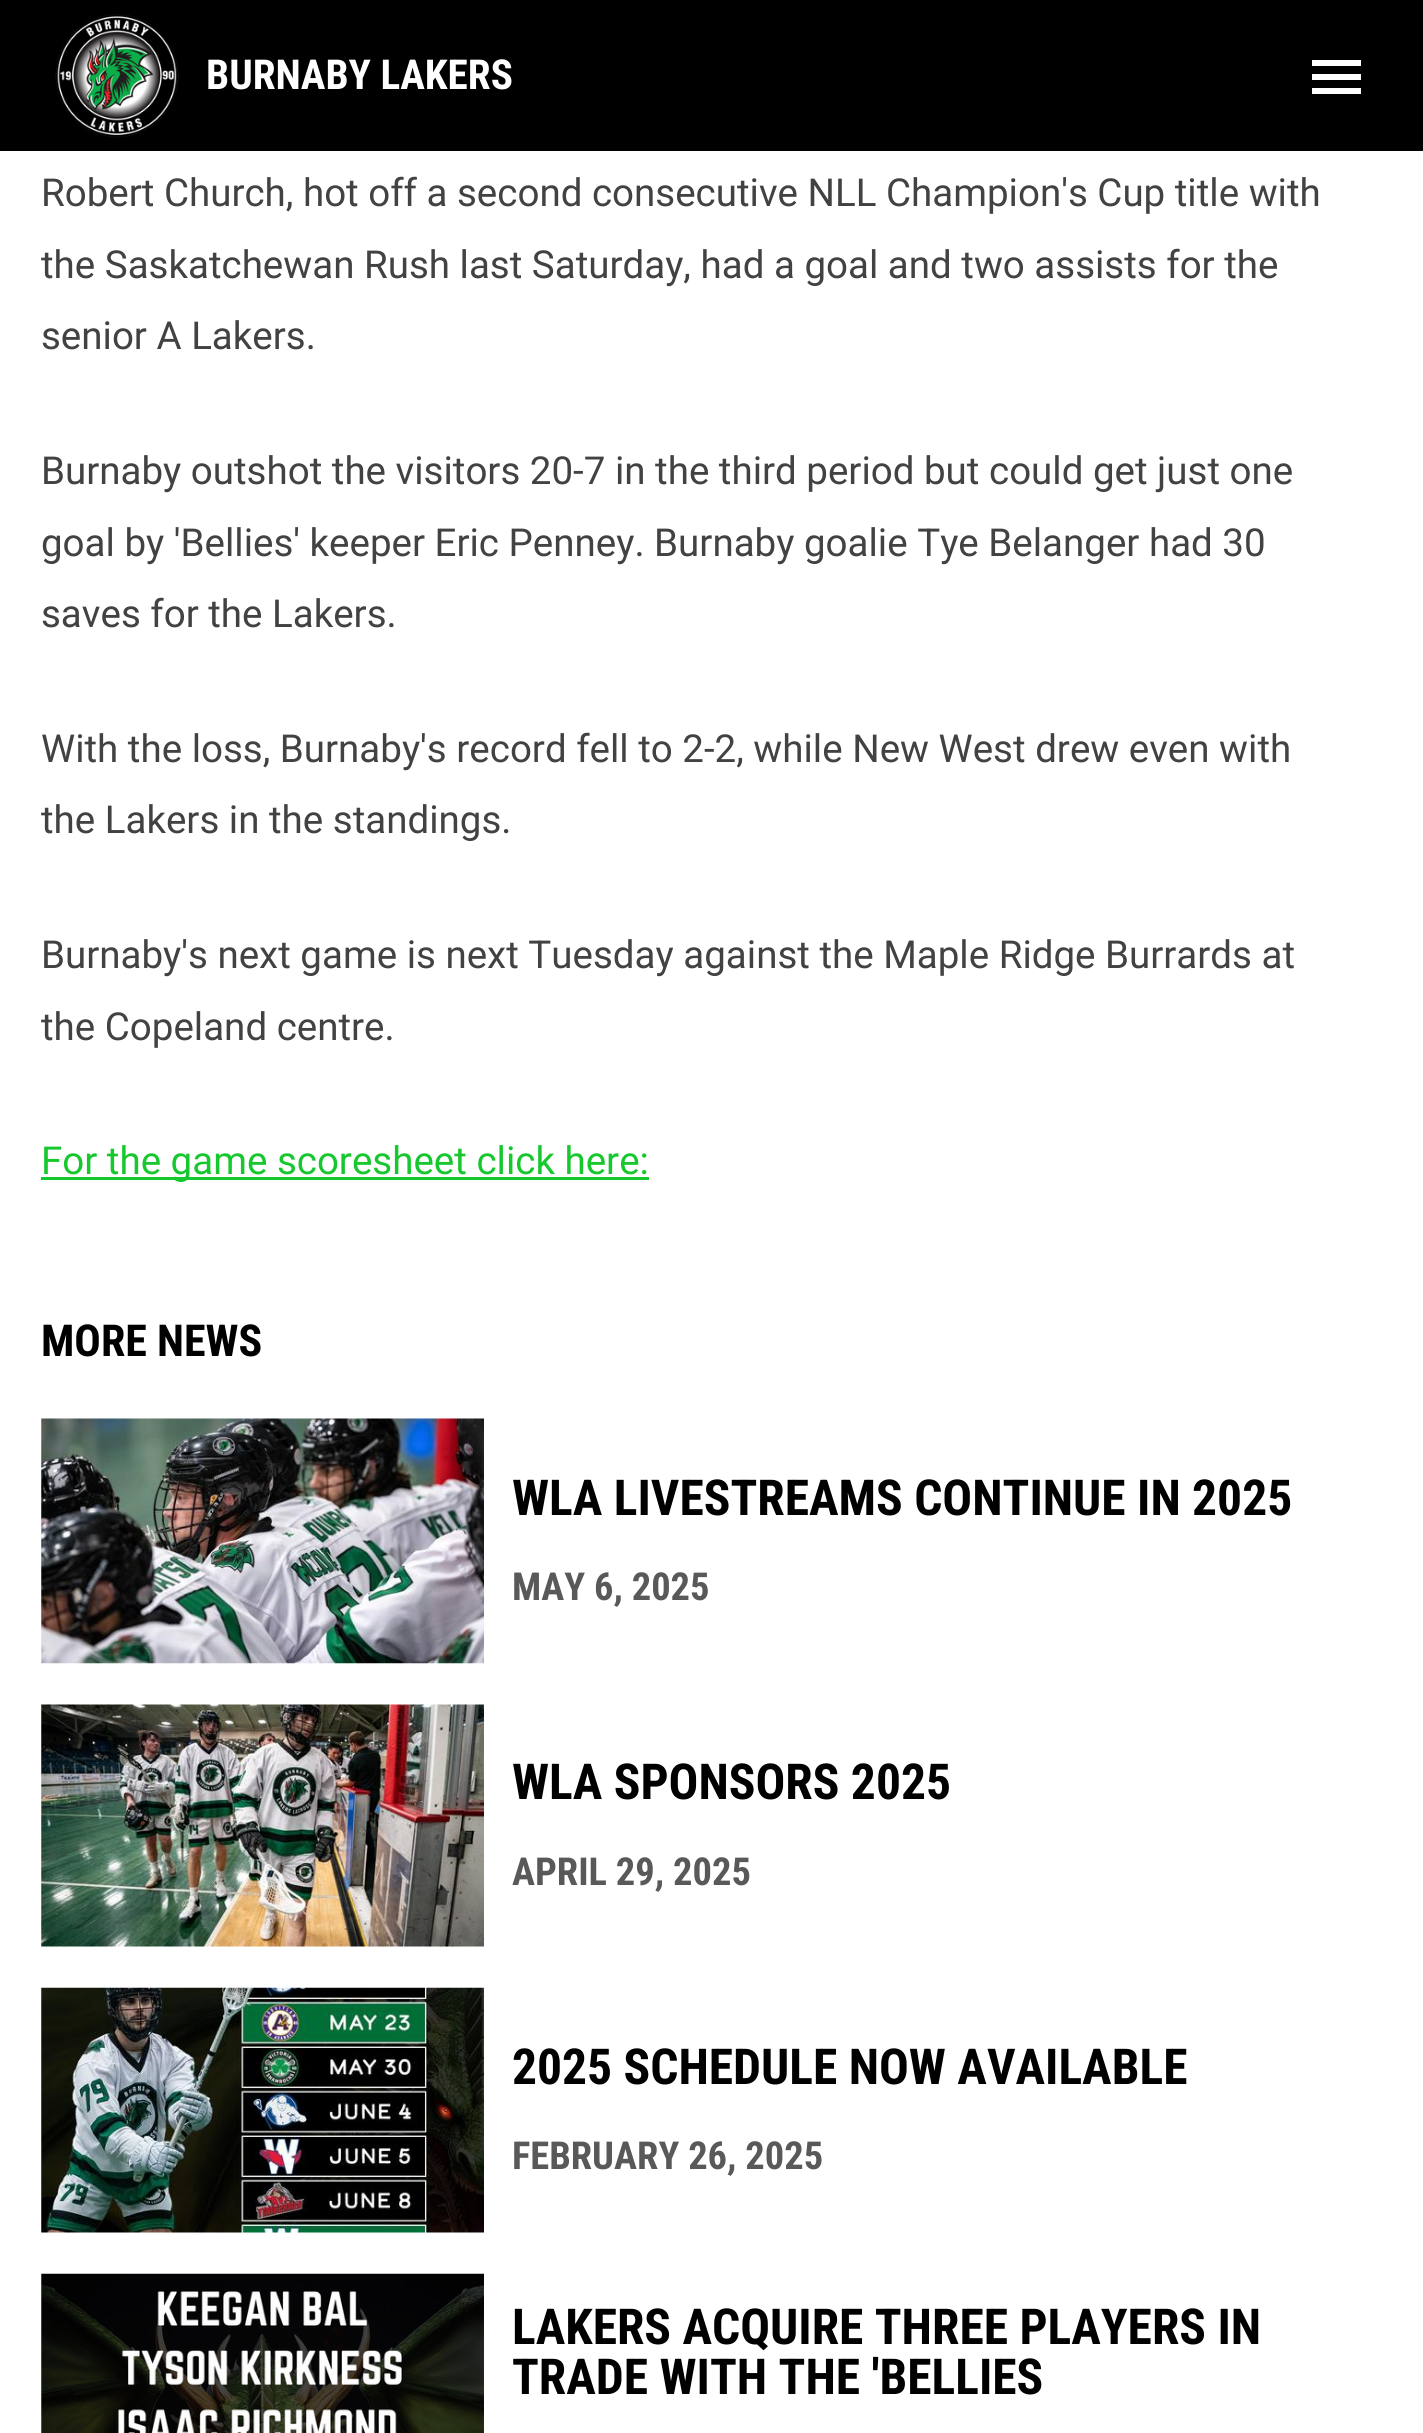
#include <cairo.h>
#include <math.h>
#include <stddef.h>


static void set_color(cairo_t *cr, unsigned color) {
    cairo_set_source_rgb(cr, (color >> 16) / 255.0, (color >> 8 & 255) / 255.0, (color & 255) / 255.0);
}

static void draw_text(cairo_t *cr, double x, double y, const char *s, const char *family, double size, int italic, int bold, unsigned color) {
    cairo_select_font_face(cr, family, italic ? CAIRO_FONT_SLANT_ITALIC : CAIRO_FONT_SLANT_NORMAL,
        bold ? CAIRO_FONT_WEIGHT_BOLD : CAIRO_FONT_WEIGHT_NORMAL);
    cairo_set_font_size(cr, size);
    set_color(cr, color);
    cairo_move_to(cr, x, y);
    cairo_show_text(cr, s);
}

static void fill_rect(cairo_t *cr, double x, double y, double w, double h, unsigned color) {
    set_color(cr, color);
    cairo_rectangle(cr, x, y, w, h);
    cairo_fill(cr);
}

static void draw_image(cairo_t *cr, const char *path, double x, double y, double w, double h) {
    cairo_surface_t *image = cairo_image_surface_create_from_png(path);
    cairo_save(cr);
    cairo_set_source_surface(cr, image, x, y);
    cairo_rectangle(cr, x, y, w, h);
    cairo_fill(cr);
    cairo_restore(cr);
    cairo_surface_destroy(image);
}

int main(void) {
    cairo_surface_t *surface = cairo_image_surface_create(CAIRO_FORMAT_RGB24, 1423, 2433);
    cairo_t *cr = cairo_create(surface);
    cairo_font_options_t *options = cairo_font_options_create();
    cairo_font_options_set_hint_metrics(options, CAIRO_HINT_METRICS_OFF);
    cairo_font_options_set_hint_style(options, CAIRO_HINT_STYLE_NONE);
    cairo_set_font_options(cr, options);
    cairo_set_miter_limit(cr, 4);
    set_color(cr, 0xFFFFFF);
    cairo_paint(cr);
    fill_rect(cr, 0, 0, 1423, 151, 0x000000);
    draw_image(cr, "assets/img1.png", 55, 14, 124, 124);
    draw_text(cr, 206, 89, "BURNABY LAKERS", "Roboto Condensed", 41.25, 0, 1, 0xFFFFFF);
    cairo_new_path(cr);
    cairo_move_to(cr, 1312, 60);
    cairo_line_to(cr, 1361, 60);
    cairo_line_to(cr, 1361, 66);
    cairo_line_to(cr, 1312, 66);
    cairo_close_path(cr);
    cairo_move_to(cr, 1312, 80);
    cairo_line_to(cr, 1312, 74);
    cairo_line_to(cr, 1361, 74);
    cairo_line_to(cr, 1361, 80);
    cairo_close_path(cr);
    cairo_move_to(cr, 1312, 94);
    cairo_line_to(cr, 1312, 88);
    cairo_line_to(cr, 1361, 88);
    cairo_line_to(cr, 1361, 94);
    cairo_close_path(cr);
    cairo_fill(cr);
    draw_text(cr, 41, 206, "Robert Church, hot off a second consecutive NLL Champion's Cup title with", "Roboto", 38.5, 0, 0, 0x424242);
    draw_text(cr, 41, 278, "the Saskatchewan Rush last Saturday, had a goal and two assists for the", "Roboto", 38.5, 0, 0, 0x424242);
    draw_text(cr, 41, 349, "senior A Lakers.", "Roboto", 38.5, 0, 0, 0x424242);
    draw_text(cr, 41, 484, "Burnaby outshot the visitors 20-7 in the third period but could get just one", "Roboto", 38.5, 0, 0, 0x424242);
    draw_text(cr, 41, 556, "goal by 'Bellies' keeper Eric Penney. Burnaby goalie Tye Belanger had 30", "Roboto", 38.5, 0, 0, 0x424242);
    draw_text(cr, 41, 627, "saves for the Lakers.", "Roboto", 38.5, 0, 0, 0x424242);
    draw_text(cr, 41, 762, "With the loss, Burnaby's record fell to 2-2, while New West drew even with", "Roboto", 38.5, 0, 0, 0x424242);
    draw_text(cr, 41, 833, "the Lakers in the standings.", "Roboto", 38.5, 0, 0, 0x424242);
    draw_text(cr, 41, 968, "Burnaby's next game is next Tuesday against the Maple Ridge Burrards at", "Roboto", 38.5, 0, 0, 0x424242);
    draw_text(cr, 41, 1040, "the Copeland centre.", "Roboto", 38.5, 0, 0, 0x424242);
    fill_rect(cr, 41, 1177, 608, 3, 0x16C72E);
    draw_text(cr, 41, 1174, "For the game scoresheet click here:", "Roboto", 38.5, 0, 0, 0x16C72E);
    draw_text(cr, 41, 1356, "MORE NEWS", "Roboto Condensed", 44, 0, 1, 0x000000);
    draw_image(cr, "assets/img2.png", 41, 1418, 443, 246);
    draw_text(cr, 512, 1515, "WLA LIVESTREAMS CONTINUE IN 2025", "Roboto Condensed", 49.5, 0, 1, 0x000000);
    draw_text(cr, 512, 1600, "MAY 6, 2025", "Roboto Condensed", 38.5, 0, 1, 0x595959);
    draw_image(cr, "assets/img3.png", 41, 1704, 443, 243);
    draw_text(cr, 512, 1799, "WLA SPONSORS 2025", "Roboto Condensed", 49.5, 0, 1, 0x000000);
    draw_text(cr, 512, 1885, "APRIL 29, 2025", "Roboto Condensed", 38.5, 0, 1, 0x595959);
    draw_image(cr, "assets/img4.png", 41, 1987, 443, 246);
    draw_text(cr, 512, 2084, "2025 SCHEDULE NOW AVAILABLE", "Roboto Condensed", 49.5, 0, 1, 0x000000);
    draw_text(cr, 512, 2169, "FEBRUARY 26, 2025", "Roboto Condensed", 38.5, 0, 1, 0x595959);
    draw_image(cr, "assets/img5.png", 41, 2273, 443, 160);
    draw_text(cr, 512, 2344, "LAKERS ACQUIRE THREE PLAYERS IN", "Roboto Condensed", 49.5, 0, 1, 0x000000);
    draw_text(cr, 512, 2394, "TRADE WITH THE 'BELLIES", "Roboto Condensed", 49.5, 0, 1, 0x000000);
    cairo_surface_write_to_png(surface, "output.png");
    cairo_font_options_destroy(options);
    cairo_destroy(cr);
    cairo_surface_destroy(surface);
    return 0;
}
